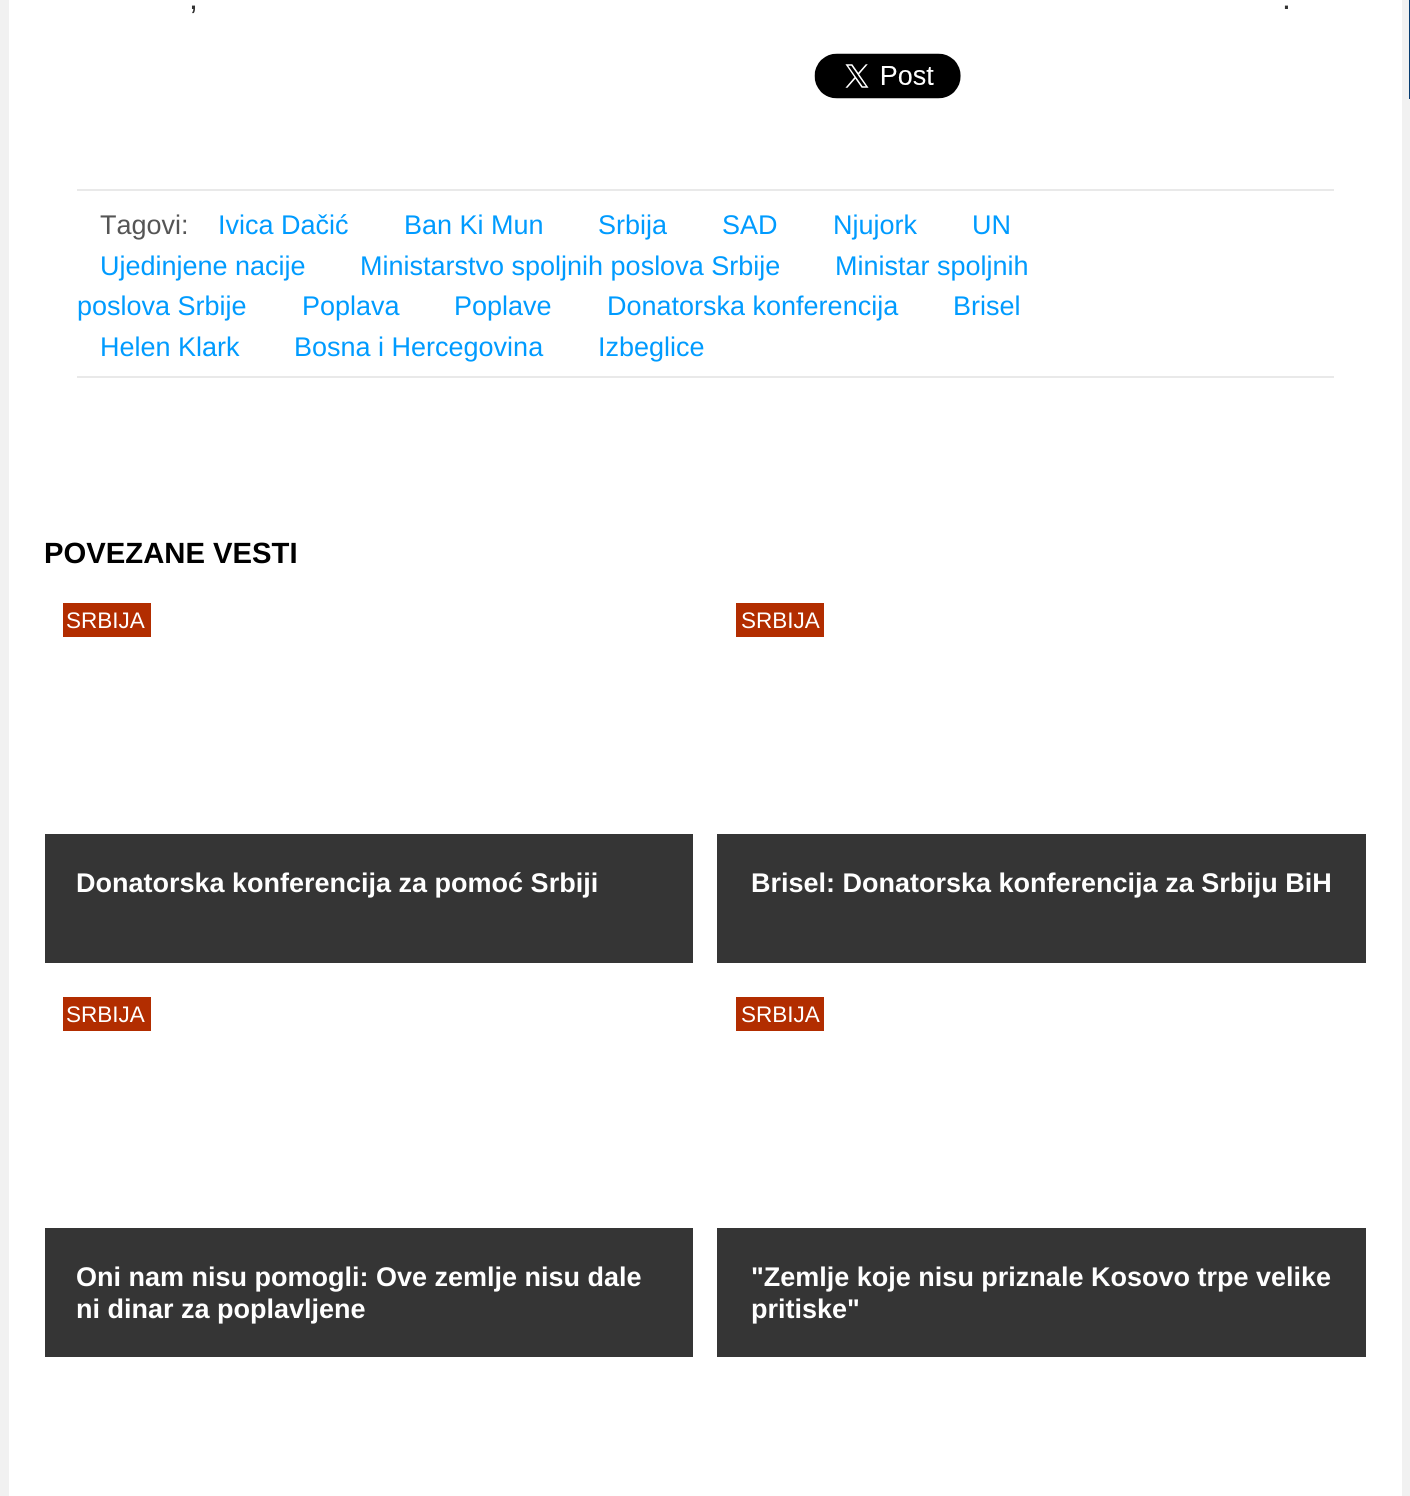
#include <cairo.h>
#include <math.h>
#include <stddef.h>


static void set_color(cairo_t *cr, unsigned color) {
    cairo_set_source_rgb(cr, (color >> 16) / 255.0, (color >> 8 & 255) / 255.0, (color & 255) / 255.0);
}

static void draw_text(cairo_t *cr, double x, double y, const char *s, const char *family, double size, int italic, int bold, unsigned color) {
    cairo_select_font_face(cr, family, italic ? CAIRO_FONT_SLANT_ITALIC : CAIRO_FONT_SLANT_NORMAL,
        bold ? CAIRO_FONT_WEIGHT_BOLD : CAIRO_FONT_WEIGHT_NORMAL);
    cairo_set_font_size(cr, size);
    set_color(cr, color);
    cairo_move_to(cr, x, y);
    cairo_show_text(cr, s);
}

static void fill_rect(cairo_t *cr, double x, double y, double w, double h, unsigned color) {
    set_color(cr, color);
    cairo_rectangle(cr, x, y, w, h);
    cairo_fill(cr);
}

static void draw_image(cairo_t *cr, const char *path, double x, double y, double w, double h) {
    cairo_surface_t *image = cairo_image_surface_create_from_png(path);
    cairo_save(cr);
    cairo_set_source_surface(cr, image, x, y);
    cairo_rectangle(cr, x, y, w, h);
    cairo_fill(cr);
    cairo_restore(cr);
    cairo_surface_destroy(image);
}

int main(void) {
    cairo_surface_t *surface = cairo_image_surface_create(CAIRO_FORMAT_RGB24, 1410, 1496);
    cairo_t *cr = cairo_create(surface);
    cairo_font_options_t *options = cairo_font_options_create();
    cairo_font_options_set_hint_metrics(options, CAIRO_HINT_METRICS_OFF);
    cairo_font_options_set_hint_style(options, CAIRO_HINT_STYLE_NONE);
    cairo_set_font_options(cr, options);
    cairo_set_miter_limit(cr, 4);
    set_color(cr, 0xF1F1F1);
    cairo_paint(cr);
    fill_rect(cr, 9, 0, 1393, 1496, 0xFFFFFF);
    draw_text(cr, 189, 9, ",", "Liberation Sans", 32, 0, 0, 0x333333);
    draw_text(cr, 1282, 9, ".", "Liberation Sans", 32, 0, 0, 0x333333);
    draw_image(cr, "assets/img1.png", 814, 53, 147, 46);
    fill_rect(cr, 77, 189, 1257, 2, 0xE9E9E9);
    draw_text(cr, 100, 234, "Tagovi:", "Liberation Sans", 27, 0, 0, 0x555555);
    draw_text(cr, 218, 234, "Ivica Dačić", "Liberation Sans", 27, 0, 0, 0x009BFF);
    draw_text(cr, 404, 234, "Ban Ki Mun", "Liberation Sans", 27, 0, 0, 0x009BFF);
    draw_text(cr, 598, 234, "Srbija", "Liberation Sans", 27, 0, 0, 0x009BFF);
    draw_text(cr, 722, 234, "SAD", "Liberation Sans", 27, 0, 0, 0x009BFF);
    draw_text(cr, 833, 234, "Njujork", "Liberation Sans", 27, 0, 0, 0x009BFF);
    draw_text(cr, 972, 234, "UN", "Liberation Sans", 27, 0, 0, 0x009BFF);
    draw_text(cr, 100, 275, "Ujedinjene nacije", "Liberation Sans", 27, 0, 0, 0x009BFF);
    draw_text(cr, 360, 275, "Ministarstvo spoljnih poslova Srbije", "Liberation Sans", 27, 0, 0, 0x009BFF);
    draw_text(cr, 835, 275, "Ministar spoljnih", "Liberation Sans", 27, 0, 0, 0x009BFF);
    draw_text(cr, 77, 315, "poslova Srbije", "Liberation Sans", 27, 0, 0, 0x009BFF);
    draw_text(cr, 302, 315, "Poplava", "Liberation Sans", 27, 0, 0, 0x009BFF);
    draw_text(cr, 454, 315, "Poplave", "Liberation Sans", 27, 0, 0, 0x009BFF);
    draw_text(cr, 607, 315, "Donatorska konferencija", "Liberation Sans", 27, 0, 0, 0x009BFF);
    draw_text(cr, 953, 315, "Brisel", "Liberation Sans", 27, 0, 0, 0x009BFF);
    draw_text(cr, 100, 356, "Helen Klark", "Liberation Sans", 27, 0, 0, 0x009BFF);
    draw_text(cr, 294, 356, "Bosna i Hercegovina", "Liberation Sans", 27, 0, 0, 0x009BFF);
    draw_text(cr, 598, 356, "Izbeglice", "Liberation Sans", 27, 0, 0, 0x009BFF);
    fill_rect(cr, 77, 376, 1257, 2, 0xE9E9E9);
    draw_text(cr, 44, 563, "POVEZANE VESTI", "Liberation Sans", 29.25, 0, 1, 0x000000);
    fill_rect(cr, 63, 603, 88, 34, 0xB22D00);
    draw_text(cr, 66, 628, "SRBIJA", "Liberation Sans", 22.5, 0, 0, 0xFFFFFF);
    fill_rect(cr, 45, 834, 648, 129, 0x353535);
    draw_text(cr, 76, 892, "Donatorska konferencija za pomoć Srbiji", "Liberation Sans", 27, 0, 1, 0xFFFFFF);
    fill_rect(cr, 736, 603, 88, 34, 0xB22D00);
    draw_text(cr, 741, 628, "SRBIJA", "Liberation Sans", 22.5, 0, 0, 0xFFFFFF);
    fill_rect(cr, 717, 834, 649, 129, 0x353535);
    draw_text(cr, 751, 892, "Brisel: Donatorska konferencija za Srbiju BiH", "Liberation Sans", 27, 0, 1, 0xFFFFFF);
    fill_rect(cr, 63, 997, 88, 34, 0xB22D00);
    draw_text(cr, 66, 1022, "SRBIJA", "Liberation Sans", 22.5, 0, 0, 0xFFFFFF);
    fill_rect(cr, 45, 1228, 648, 129, 0x353535);
    draw_text(cr, 76, 1286, "Oni nam nisu pomogli: Ove zemlje nisu dale", "Liberation Sans", 27, 0, 1, 0xFFFFFF);
    draw_text(cr, 76, 1318, "ni dinar za poplavljene", "Liberation Sans", 27, 0, 1, 0xFFFFFF);
    fill_rect(cr, 736, 997, 88, 34, 0xB22D00);
    draw_text(cr, 741, 1022, "SRBIJA", "Liberation Sans", 22.5, 0, 0, 0xFFFFFF);
    fill_rect(cr, 717, 1228, 649, 129, 0x353535);
    draw_text(cr, 751, 1286, "\"Zemlje koje nisu priznale Kosovo trpe velike", "Liberation Sans", 27, 0, 1, 0xFFFFFF);
    draw_text(cr, 751, 1318, "pritiske\"", "Liberation Sans", 27, 0, 1, 0xFFFFFF);
    fill_rect(cr, 1409, 0, 1, 99, 0x063C71);
    cairo_surface_write_to_png(surface, "output.png");
    cairo_font_options_destroy(options);
    cairo_destroy(cr);
    cairo_surface_destroy(surface);
    return 0;
}
